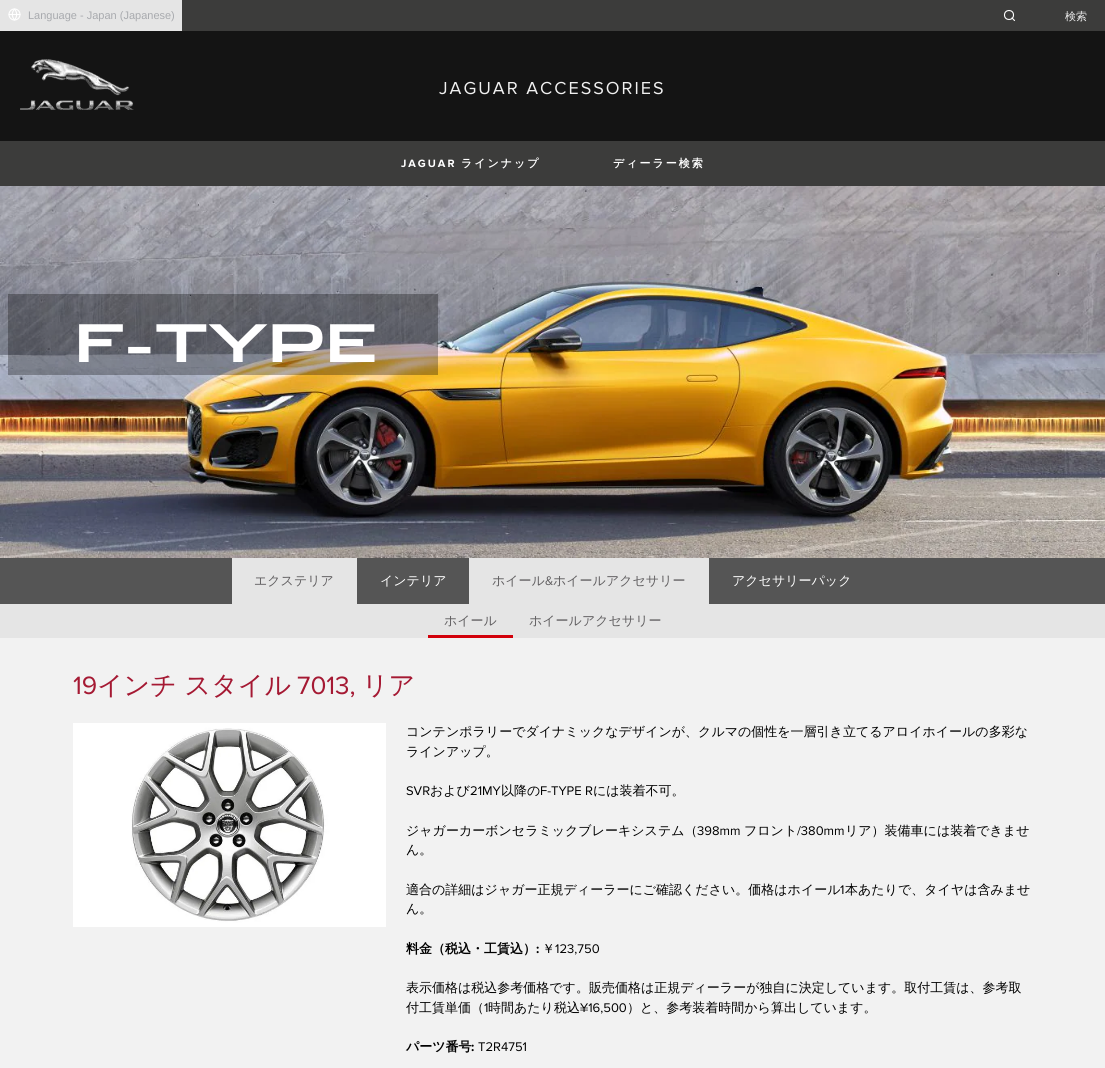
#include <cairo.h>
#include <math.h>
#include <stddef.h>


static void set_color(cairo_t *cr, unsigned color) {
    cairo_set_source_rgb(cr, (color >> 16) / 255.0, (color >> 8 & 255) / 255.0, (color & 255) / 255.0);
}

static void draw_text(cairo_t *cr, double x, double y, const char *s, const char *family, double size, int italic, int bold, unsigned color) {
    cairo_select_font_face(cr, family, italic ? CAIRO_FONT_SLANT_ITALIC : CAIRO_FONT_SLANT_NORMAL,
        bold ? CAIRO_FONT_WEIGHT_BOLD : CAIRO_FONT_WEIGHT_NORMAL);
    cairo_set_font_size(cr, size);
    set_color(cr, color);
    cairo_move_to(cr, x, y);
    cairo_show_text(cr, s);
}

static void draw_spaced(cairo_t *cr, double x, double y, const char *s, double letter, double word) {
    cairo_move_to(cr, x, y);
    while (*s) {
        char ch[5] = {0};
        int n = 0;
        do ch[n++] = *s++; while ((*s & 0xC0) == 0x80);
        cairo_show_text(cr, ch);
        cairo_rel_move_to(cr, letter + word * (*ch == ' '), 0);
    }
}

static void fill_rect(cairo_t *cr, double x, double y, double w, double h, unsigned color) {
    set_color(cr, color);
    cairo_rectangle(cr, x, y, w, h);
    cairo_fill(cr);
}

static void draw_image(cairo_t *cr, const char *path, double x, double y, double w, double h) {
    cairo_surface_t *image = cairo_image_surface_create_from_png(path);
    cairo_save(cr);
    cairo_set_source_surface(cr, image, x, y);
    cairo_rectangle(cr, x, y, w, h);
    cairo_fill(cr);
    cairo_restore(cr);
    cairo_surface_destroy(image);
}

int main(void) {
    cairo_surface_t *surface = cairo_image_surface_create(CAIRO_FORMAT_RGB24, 1105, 1068);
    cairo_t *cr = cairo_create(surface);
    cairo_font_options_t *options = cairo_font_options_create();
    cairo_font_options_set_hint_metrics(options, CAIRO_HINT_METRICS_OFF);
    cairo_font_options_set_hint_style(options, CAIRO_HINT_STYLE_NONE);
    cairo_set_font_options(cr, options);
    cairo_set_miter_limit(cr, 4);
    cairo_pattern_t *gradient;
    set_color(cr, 0x141414);
    cairo_paint(cr);
    fill_rect(cr, 182, 0, 923, 31, 0x3C3C3B);
    fill_rect(cr, 0, 0, 182, 31, 0xE5E5E5);
    draw_image(cr, "assets/img1.png", 8, 8, 13, 13);
    draw_text(cr, 28, 19, "Language - Japan (Japanese)", "Liberation Sans", 11, 0, 0, 0xA8AAAE);
    cairo_new_path(cr);
    cairo_arc(cr, 1009, 15, 4.5, 0, 2 * M_PI);
    set_color(cr, 0xFFFFFF);
    cairo_set_line_width(cr, 1.1);
    cairo_stroke(cr);
    cairo_new_path(cr);
    cairo_move_to(cr, 1014.5, 20.5);
    cairo_line_to(cr, 1012, 18);
    cairo_set_line_cap(cr, CAIRO_LINE_CAP_ROUND);
    cairo_set_line_join(cr, CAIRO_LINE_JOIN_ROUND);
    cairo_stroke(cr);
    draw_text(cr, 1065, 20, "検索", "WenQuanYi Zen Hei Medium", 11, 0, 0, 0xF0F0F0);
    draw_image(cr, "assets/img2.png", 20, 59, 114, 51);
    cairo_select_font_face(cr, "Proxima Nova", CAIRO_FONT_SLANT_NORMAL, CAIRO_FONT_WEIGHT_NORMAL);
    cairo_set_font_size(cr, 18);
    draw_spaced(cr, 439, 94, "JAGUAR ACCESSORIES", 2, 0);
    fill_rect(cr, 0, 141, 1105, 45, 0x3C3C3B);
    cairo_select_font_face(cr, "Proxima Nova", CAIRO_FONT_SLANT_NORMAL, CAIRO_FONT_WEIGHT_BOLD);
    cairo_set_font_size(cr, 11);
    set_color(cr, 0xFFFFFF);
    draw_spaced(cr, 401, 167, "JAGUAR", 2, 0);
    cairo_select_font_face(cr, "WenQuanYi Zen Hei", CAIRO_FONT_SLANT_NORMAL, CAIRO_FONT_WEIGHT_BOLD);
    draw_spaced(cr, 461, 167, "ラインナップ", 2, 0);
    draw_spaced(cr, 613, 167, "ディーラー検索", 2, 0);
    draw_image(cr, "assets/img3.png", 0, 186, 1105, 372);
    cairo_set_source_rgba(cr, 0, 0, 0, 0.3);
    cairo_rectangle(cr, 8, 294, 430, 81);
    cairo_fill(cr);
    draw_text(cr, 74, 362, "F-TYPE", "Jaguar", 52, 0, 1, 0xFFFFFF);
    fill_rect(cr, 0, 558, 1105, 46, 0x555555);
    fill_rect(cr, 232, 558, 125, 46, 0xE5E5E5);
    draw_text(cr, 254, 585, "エクステリア", "WenQuanYi Zen Hei Medium", 13, 0, 0, 0x615F61);
    draw_text(cr, 380, 585, "インテリア", "WenQuanYi Zen Hei Medium", 13, 0, 0, 0xFFFFFF);
    fill_rect(cr, 469, 558, 240, 46, 0xE5E5E5);
    draw_text(cr, 492, 585, "ホイール", "WenQuanYi Zen Hei Medium", 13, 0, 0, 0x615F61);
    draw_text(cr, 545, 585, "&", "Proxima Nova", 13, 0, 0, 0x615F61);
    draw_text(cr, 553, 585, "ホイールアクセサリー", "WenQuanYi Zen Hei Medium", 13, 0, 0, 0x615F61);
    draw_text(cr, 732, 585, "アクセサリーパック", "WenQuanYi Zen Hei Medium", 13, 0, 0, 0xFFFFFF);
    fill_rect(cr, 0, 604, 1105, 34, 0xE5E5E5);
    gradient = cairo_pattern_create_linear(471, 604, 471, 638);
    cairo_pattern_add_color_stop_rgba(gradient, 0, 0.898, 0.898, 0.898, 1);
    cairo_pattern_add_color_stop_rgba(gradient, 0.92, 0.898, 0.898, 0.898, 1);
    cairo_pattern_add_color_stop_rgba(gradient, 0.92, 0.824, 0, 0.039, 1);
    cairo_pattern_add_color_stop_rgba(gradient, 1, 0.824, 0, 0.039, 1);
    cairo_set_source(cr, gradient);
    cairo_pattern_destroy(gradient);
    cairo_rectangle(cr, 428, 635, 85, 3);
    cairo_fill(cr);
    draw_text(cr, 444, 625, "ホイール", "WenQuanYi Zen Hei Medium", 13, 0, 0, 0x615F61);
    draw_text(cr, 529, 625, "ホイールアクセサリー", "WenQuanYi Zen Hei Medium", 13, 0, 0, 0x615F61);
    fill_rect(cr, 0, 638, 1105, 430, 0xF2F2F2);
    draw_text(cr, 73, 694, "19", "Proxima Nova", 26, 0, 0, 0xA51933);
    draw_text(cr, 97, 694, "インチ スタイル", "WenQuanYi Zen Hei Medium", 26, 0, 0, 0xA51933);
    draw_text(cr, 297, 694, "7013,", "Proxima Nova", 26, 0, 0, 0xA51933);
    draw_text(cr, 362, 694, "リア", "WenQuanYi Zen Hei Medium", 26, 0, 0, 0xA51933);
    draw_image(cr, "assets/img4.png", 73, 723, 313, 204);
    draw_text(cr, 406, 736, "コンテンポラリーでダイナミックなデザインが、クルマの個性を一層引き立てるアロイホイールの多彩な", "WenQuanYi Zen Hei Medium", 13, 0, 0, 0x000000);
    draw_text(cr, 406, 756, "ラインアップ。", "WenQuanYi Zen Hei Medium", 13, 0, 0, 0x000000);
    draw_text(cr, 406, 795, "SVR", "Proxima Nova", 13, 0, 0, 0x000000);
    draw_text(cr, 430, 795, "および", "WenQuanYi Zen Hei Medium", 13, 0, 0, 0x000000);
    draw_text(cr, 470, 795, "21MY", "Proxima Nova", 13, 0, 0, 0x000000);
    draw_text(cr, 501, 795, "以降の", "WenQuanYi Zen Hei Medium", 13, 0, 0, 0x000000);
    draw_text(cr, 540, 795, "F-TYPE R", "Proxima Nova", 13, 0, 0, 0x000000);
    draw_text(cr, 593, 795, "には装着不可。", "WenQuanYi Zen Hei Medium", 13, 0, 0, 0x000000);
    draw_text(cr, 406, 835, "ジャガーカーボンセラミックブレーキシステム（", "WenQuanYi Zen Hei Medium", 13, 0, 0, 0x000000);
    draw_text(cr, 697, 835, "398mm", "Proxima Nova", 13, 0, 0, 0x000000);
    draw_text(cr, 744, 835, "フロント", "WenQuanYi Zen Hei Medium", 13, 0, 0, 0x000000);
    draw_text(cr, 797, 835, "/380mm", "Proxima Nova", 13, 0, 0, 0x000000);
    draw_text(cr, 845, 835, "リア）装備車には装着できませ", "WenQuanYi Zen Hei Medium", 13, 0, 0, 0x000000);
    draw_text(cr, 406, 854, "ん。", "WenQuanYi Zen Hei Medium", 13, 0, 0, 0x000000);
    draw_text(cr, 406, 894, "適合の詳細はジャガー正規ディーラーにご確認ください。価格はホイール", "WenQuanYi Zen Hei Medium", 13, 0, 0, 0x000000);
    draw_text(cr, 840, 894, "1", "Proxima Nova", 13, 0, 0, 0x000000);
    draw_text(cr, 845, 894, "本あたりで、タイヤは含みませ", "WenQuanYi Zen Hei Medium", 13, 0, 0, 0x000000);
    draw_text(cr, 406, 913, "ん。", "WenQuanYi Zen Hei Medium", 13, 0, 0, 0x000000);
    draw_text(cr, 406, 953, "料金（税込・工賃込）", "WenQuanYi Zen Hei", 13, 0, 1, 0x000000);
    draw_text(cr, 536, 953, ":", "Proxima Nova", 13, 0, 1, 0x000000);
    draw_text(cr, 542, 953, "￥", "WenQuanYi Zen Hei Medium", 13, 0, 0, 0x000000);
    draw_text(cr, 555, 953, "123,750", "Proxima Nova", 13, 0, 0, 0x000000);
    draw_text(cr, 406, 992, "表示価格は税込参考価格です。販売価格は正規ディーラーが独自に決定しています。取付工賃は、参考取", "WenQuanYi Zen Hei Medium", 13, 0, 0, 0x000000);
    draw_text(cr, 406, 1012, "付工賃単価（", "WenQuanYi Zen Hei Medium", 13, 0, 0, 0x000000);
    draw_text(cr, 484, 1012, "1", "Proxima Nova", 13, 0, 0, 0x000000);
    draw_text(cr, 488, 1012, "時間あたり税込", "WenQuanYi Zen Hei Medium", 13, 0, 0, 0x000000);
    draw_text(cr, 580, 1012, "¥16,500", "Proxima Nova", 13, 0, 0, 0x000000);
    draw_text(cr, 627, 1012, "）と、参考装着時間から算出しています。", "WenQuanYi Zen Hei Medium", 13, 0, 0, 0x000000);
    draw_text(cr, 406, 1051, "パーツ番号", "WenQuanYi Zen Hei", 13, 0, 1, 0x000000);
    draw_text(cr, 471, 1051, ":", "Proxima Nova", 13, 0, 1, 0x000000);
    draw_text(cr, 478, 1051, "T2R4751", "Proxima Nova", 13, 0, 0, 0x000000);
    cairo_surface_write_to_png(surface, "output.png");
    cairo_font_options_destroy(options);
    cairo_destroy(cr);
    cairo_surface_destroy(surface);
    return 0;
}
